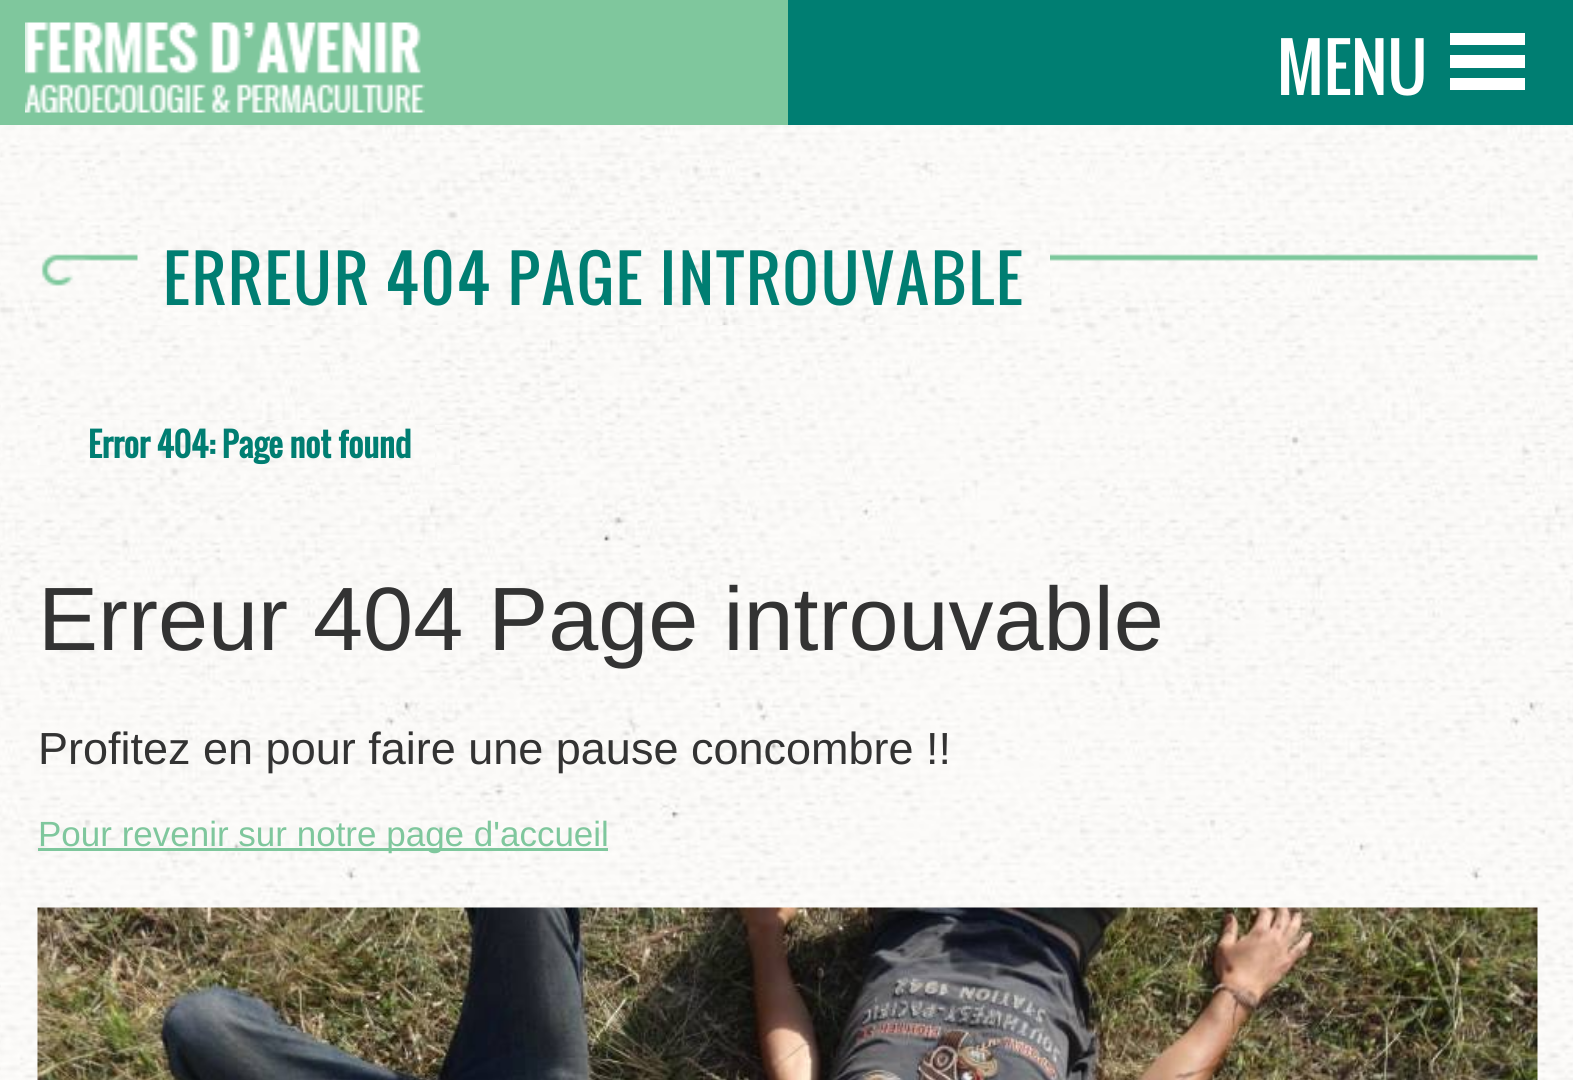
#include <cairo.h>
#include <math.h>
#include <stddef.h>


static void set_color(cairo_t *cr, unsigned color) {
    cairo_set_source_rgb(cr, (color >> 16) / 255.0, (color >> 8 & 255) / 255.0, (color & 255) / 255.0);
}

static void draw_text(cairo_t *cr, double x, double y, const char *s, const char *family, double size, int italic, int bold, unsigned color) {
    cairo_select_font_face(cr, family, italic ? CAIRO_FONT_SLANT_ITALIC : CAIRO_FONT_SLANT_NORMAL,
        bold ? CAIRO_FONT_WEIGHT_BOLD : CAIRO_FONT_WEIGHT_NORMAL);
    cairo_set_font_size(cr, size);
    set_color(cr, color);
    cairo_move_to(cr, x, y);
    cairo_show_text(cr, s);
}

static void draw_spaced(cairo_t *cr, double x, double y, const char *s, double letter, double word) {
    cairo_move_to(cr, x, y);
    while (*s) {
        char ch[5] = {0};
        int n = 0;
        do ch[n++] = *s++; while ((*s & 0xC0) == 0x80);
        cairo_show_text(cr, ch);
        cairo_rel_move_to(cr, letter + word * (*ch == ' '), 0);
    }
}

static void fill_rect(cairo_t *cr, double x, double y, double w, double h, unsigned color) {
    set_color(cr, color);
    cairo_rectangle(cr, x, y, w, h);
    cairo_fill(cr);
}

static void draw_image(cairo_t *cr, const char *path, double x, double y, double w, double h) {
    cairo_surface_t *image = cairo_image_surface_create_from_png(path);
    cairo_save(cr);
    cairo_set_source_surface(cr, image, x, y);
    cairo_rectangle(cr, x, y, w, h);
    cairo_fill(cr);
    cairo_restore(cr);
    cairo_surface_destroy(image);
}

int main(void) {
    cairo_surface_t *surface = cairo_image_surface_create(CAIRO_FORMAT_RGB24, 1573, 1080);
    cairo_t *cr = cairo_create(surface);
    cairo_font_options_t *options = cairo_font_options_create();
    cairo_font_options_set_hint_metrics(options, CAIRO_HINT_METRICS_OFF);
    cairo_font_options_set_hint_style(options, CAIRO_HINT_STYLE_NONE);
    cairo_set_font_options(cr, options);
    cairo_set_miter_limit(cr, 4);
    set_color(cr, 0xFFFFFF);
    cairo_paint(cr);
    draw_image(cr, "assets/img1.png", 0, 125, 1573, 955);
    fill_rect(cr, 0, 0, 788, 125, 0x7FC79D);
    draw_image(cr, "assets/img2.png", 25, 22, 400, 91);
    fill_rect(cr, 788, 0, 785, 125, 0x007E72);
    draw_text(cr, 1277, 95, "MENU", "Oswald", 65, 0, 0, 0xFFFFFF);
    fill_rect(cr, 1450, 33, 75, 12, 0xFFFFFF);
    fill_rect(cr, 1450, 55, 75, 13, 0xFFFFFF);
    fill_rect(cr, 1450, 78, 75, 12, 0xFFFFFF);
    draw_image(cr, "assets/img3.png", 41, 254, 1497, 32);
    draw_image(cr, "assets/img4.png", 137, 230, 913, 95);
    cairo_set_font_size(cr, 62.5);
    set_color(cr, 0x007E72);
    draw_spaced(cr, 163, 305, "ERREUR 404 PAGE INTROUVABLE", 2.5, 0);
    draw_image(cr, "assets/img6.png", 37, 425, 423, 40);
    draw_image(cr, "assets/img5.png", 62, 420, 373, 48);
    draw_text(cr, 88, 458, "Error 404: Page not found", "Oswald", 32.5, 0, 1, 0x007E72);
    draw_text(cr, 38, 650, "Erreur 404 Page introuvable", "Liberation Sans", 90, 0, 0, 0x333333);
    draw_text(cr, 38, 764, "Profitez en pour faire une pause concombre !!", "Liberation Sans", 45, 0, 0, 0x333333);
    fill_rect(cr, 38, 848, 570, 3, 0x7FC79D);
    draw_text(cr, 38, 846, "Pour revenir sur notre page d'accueil", "Liberation Sans", 35, 0, 0, 0x7FC79D);
    draw_image(cr, "assets/img7.png", 37, 907, 1501, 173);
    cairo_surface_write_to_png(surface, "output.png");
    cairo_font_options_destroy(options);
    cairo_destroy(cr);
    cairo_surface_destroy(surface);
    return 0;
}
